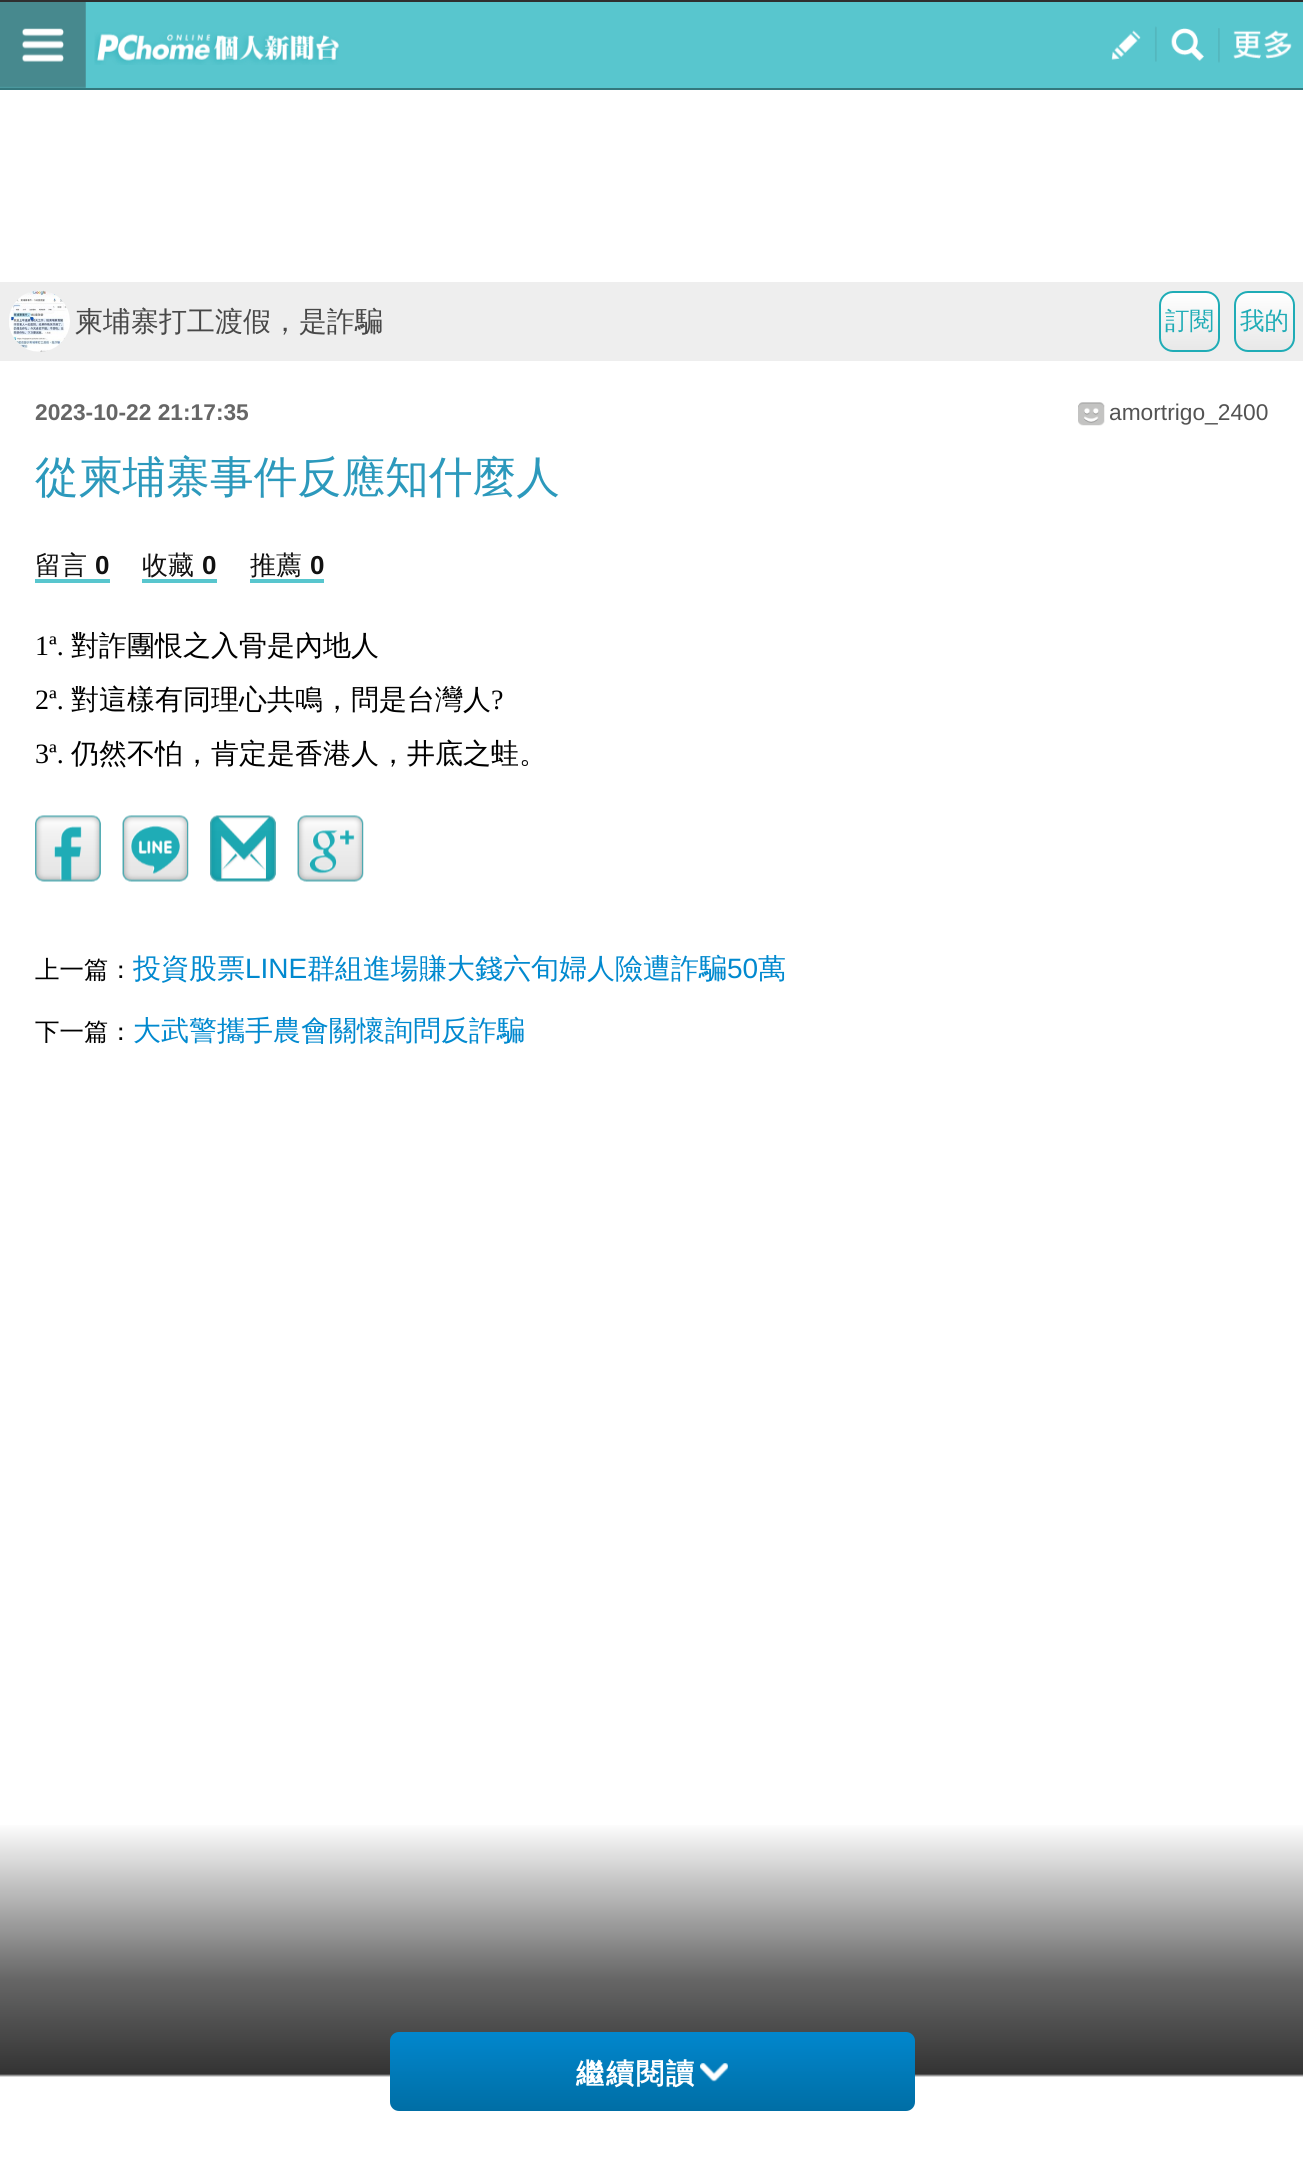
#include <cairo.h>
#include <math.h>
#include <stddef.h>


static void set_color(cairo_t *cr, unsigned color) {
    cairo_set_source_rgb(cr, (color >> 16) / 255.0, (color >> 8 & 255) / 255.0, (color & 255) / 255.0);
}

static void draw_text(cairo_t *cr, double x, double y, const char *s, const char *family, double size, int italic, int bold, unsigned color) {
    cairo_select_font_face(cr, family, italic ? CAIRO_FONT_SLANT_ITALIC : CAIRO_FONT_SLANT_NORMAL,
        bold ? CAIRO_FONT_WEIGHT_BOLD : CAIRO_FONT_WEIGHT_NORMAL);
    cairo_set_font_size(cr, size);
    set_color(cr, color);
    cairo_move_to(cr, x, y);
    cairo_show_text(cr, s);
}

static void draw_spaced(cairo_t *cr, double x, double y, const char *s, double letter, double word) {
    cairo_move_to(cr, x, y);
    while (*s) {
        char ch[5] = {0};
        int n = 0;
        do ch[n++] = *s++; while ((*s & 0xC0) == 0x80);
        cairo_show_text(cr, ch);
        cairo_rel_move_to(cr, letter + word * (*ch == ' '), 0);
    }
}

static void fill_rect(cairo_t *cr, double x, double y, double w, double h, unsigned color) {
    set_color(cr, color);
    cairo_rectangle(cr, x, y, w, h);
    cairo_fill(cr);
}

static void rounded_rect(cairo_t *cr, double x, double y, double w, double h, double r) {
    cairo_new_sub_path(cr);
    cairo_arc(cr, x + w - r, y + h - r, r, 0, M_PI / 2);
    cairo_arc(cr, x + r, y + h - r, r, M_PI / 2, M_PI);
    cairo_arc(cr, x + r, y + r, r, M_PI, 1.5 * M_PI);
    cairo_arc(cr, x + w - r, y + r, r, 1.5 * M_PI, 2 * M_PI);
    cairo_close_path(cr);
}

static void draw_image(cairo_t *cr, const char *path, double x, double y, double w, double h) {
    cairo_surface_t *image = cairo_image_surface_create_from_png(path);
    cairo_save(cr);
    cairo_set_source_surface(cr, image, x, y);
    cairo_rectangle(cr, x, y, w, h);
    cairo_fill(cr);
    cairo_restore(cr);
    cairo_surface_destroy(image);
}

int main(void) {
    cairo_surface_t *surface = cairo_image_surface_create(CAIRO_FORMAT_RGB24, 1303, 2183);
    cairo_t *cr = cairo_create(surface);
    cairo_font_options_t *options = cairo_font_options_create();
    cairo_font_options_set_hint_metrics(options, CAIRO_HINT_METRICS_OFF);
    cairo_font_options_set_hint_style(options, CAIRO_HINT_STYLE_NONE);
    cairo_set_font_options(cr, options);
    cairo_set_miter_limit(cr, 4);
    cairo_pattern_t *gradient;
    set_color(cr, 0xFFFFFF);
    cairo_paint(cr);
    fill_rect(cr, 0, 2, 1303, 86, 0x58C6CE);
    fill_rect(cr, 0, 0, 1303, 2, 0x2F2F2F);
    fill_rect(cr, 0, 88, 1303, 2, 0x34787D);
    draw_image(cr, "assets/img1.png", 0, 2, 86, 86);
    draw_image(cr, "assets/img2.png", 94, 32, 245, 33);
    draw_image(cr, "assets/img3.png", 1111, 26, 46, 36);
    draw_image(cr, "assets/img4.png", 1171, 28, 33, 33);
    draw_image(cr, "assets/img5.png", 1218, 28, 74, 35);
    fill_rect(cr, 0, 282, 1303, 79, 0xEEEEEE);
    draw_image(cr, "assets/img6.png", 9, 290, 61, 62);
    draw_text(cr, 75, 331, "柬埔寨打工渡假，是詐騙", "WenQuanYi Zen Hei Medium", 28, 0, 0, 0x484848);
    cairo_save(cr);
    rounded_rect(cr, 1159, 291, 61, 61, 14);
    cairo_clip(cr);
    gradient = cairo_pattern_create_linear(1189, 292, 1189, 350);
    cairo_pattern_add_color_stop_rgba(gradient, 0, 1, 1, 1, 1);
    cairo_pattern_add_color_stop_rgba(gradient, 1, 0.91, 0.91, 0.91, 1);
    cairo_set_source(cr, gradient);
    cairo_pattern_destroy(gradient);
    cairo_rectangle(cr, 1159, 292, 61, 58);
    cairo_fill(cr);
    cairo_restore(cr);
    rounded_rect(cr, 1160, 292, 59, 59, 13);
    set_color(cr, 0x1FACB6);
    cairo_stroke(cr);
    draw_text(cr, 1165, 329, "訂閱", "WenQuanYi Zen Hei Medium", 24.5, 0, 0, 0x1FACB6);
    cairo_save(cr);
    rounded_rect(cr, 1234, 291, 61, 61, 14);
    cairo_clip(cr);
    gradient = cairo_pattern_create_linear(1264, 292, 1264, 350);
    cairo_pattern_add_color_stop_rgba(gradient, 0, 1, 1, 1, 1);
    cairo_pattern_add_color_stop_rgba(gradient, 1, 0.91, 0.91, 0.91, 1);
    cairo_set_source(cr, gradient);
    cairo_pattern_destroy(gradient);
    cairo_rectangle(cr, 1234, 292, 61, 58);
    cairo_fill(cr);
    cairo_restore(cr);
    rounded_rect(cr, 1235, 292, 59, 59, 13);
    cairo_stroke(cr);
    draw_text(cr, 1240, 329, "我的", "WenQuanYi Zen Hei Medium", 24.5, 0, 0, 0x1FACB6);
    draw_text(cr, 35, 420, "2023-10-22 21:17:35", "Liberation Sans", 22.75, 0, 1, 0x666666);
    draw_image(cr, "assets/img7.png", 1078, 402, 27, 24);
    draw_text(cr, 1109, 420, "amortrigo_2400", "Liberation Sans", 22.75, 0, 0, 0x535353);
    draw_text(cr, 35, 492, "從柬埔寨事件反應知什麼人", "WenQuanYi Zen Hei Medium", 43.75, 0, 0, 0x2C99BC);
    draw_text(cr, 35, 574, "留言", "WenQuanYi Zen Hei Medium", 26, 0, 0, 0x111111);
    draw_text(cr, 95, 574, "0", "Liberation Sans", 26, 0, 1, 0x111111);
    fill_rect(cr, 35, 579, 75, 4, 0x58C6CE);
    draw_text(cr, 142, 574, "收藏", "WenQuanYi Zen Hei Medium", 26, 0, 0, 0x111111);
    fill_rect(cr, 142, 579, 75, 4, 0x58C6CE);
    draw_text(cr, 202, 574, "0", "Liberation Sans", 26, 0, 1, 0x111111);
    draw_text(cr, 250, 574, "推薦", "WenQuanYi Zen Hei Medium", 26, 0, 0, 0x111111);
    fill_rect(cr, 250, 579, 74, 4, 0x58C6CE);
    draw_text(cr, 310, 574, "0", "Liberation Sans", 26, 0, 1, 0x111111);
    draw_text(cr, 35, 655, "1ª.", "Liberation Serif", 28, 0, 0, 0x000000);
    draw_text(cr, 71, 655, "對詐團恨之入骨是內地人", "WenQuanYi Zen Hei Medium", 28, 0, 0, 0x000000);
    draw_text(cr, 35, 709, "2ª.", "Liberation Serif", 28, 0, 0, 0x000000);
    draw_text(cr, 71, 709, "對這樣有同理心共鳴，問是台灣人", "WenQuanYi Zen Hei Medium", 28, 0, 0, 0x000000);
    draw_text(cr, 491, 709, "?", "Liberation Serif", 28, 0, 0, 0x000000);
    draw_text(cr, 35, 763, "3ª.", "Liberation Serif", 28, 0, 0, 0x000000);
    draw_text(cr, 71, 763, "仍然不怕，肯定是香港人，井底之蛙。", "WenQuanYi Zen Hei Medium", 28, 0, 0, 0x000000);
    draw_image(cr, "assets/img8.png", 35, 815, 66, 67);
    draw_image(cr, "assets/img9.png", 122, 815, 67, 67);
    draw_image(cr, "assets/img10.png", 210, 815, 66, 67);
    draw_image(cr, "assets/img11.png", 297, 815, 67, 67);
    draw_text(cr, 35, 978, "上一篇：", "WenQuanYi Zen Hei Medium", 24.5, 0, 0, 0x000000);
    draw_text(cr, 133, 978, "投資股票", "WenQuanYi Zen Hei Medium", 28, 0, 0, 0x0189CF);
    draw_text(cr, 245, 978, "LINE", "Liberation Sans", 28, 0, 0, 0x0189CF);
    draw_text(cr, 307, 978, "群組進場賺大錢六旬婦人險遭詐騙", "WenQuanYi Zen Hei Medium", 28, 0, 0, 0x0189CF);
    draw_text(cr, 727, 978, "50", "Liberation Sans", 28, 0, 0, 0x0189CF);
    draw_text(cr, 758, 978, "萬", "WenQuanYi Zen Hei Medium", 28, 0, 0, 0x0189CF);
    draw_text(cr, 35, 1040, "下一篇：", "WenQuanYi Zen Hei Medium", 24.5, 0, 0, 0x000000);
    draw_text(cr, 133, 1040, "大武警攜手農會關懷詢問反詐騙", "WenQuanYi Zen Hei Medium", 28, 0, 0, 0x0189CF);
    gradient = cairo_pattern_create_linear(652, 1822, 652, 2137);
    cairo_pattern_add_color_stop_rgba(gradient, 0, 1, 1, 1, 1);
    cairo_pattern_add_color_stop_rgba(gradient, 0.5, 0.4, 0.4, 0.4, 1);
    cairo_pattern_add_color_stop_rgba(gradient, 0.8, 0.2, 0.2, 0.2, 1);
    cairo_pattern_add_color_stop_rgba(gradient, 0.81, 1, 1, 1, 1);
    cairo_set_source(cr, gradient);
    cairo_pattern_destroy(gradient);
    cairo_rectangle(cr, 0, 1825, 1303, 252);
    cairo_fill(cr);
    gradient = cairo_pattern_create_linear(653, 2032, 653, 2111);
    cairo_pattern_add_color_stop_rgba(gradient, 0, 0.004, 0.529, 0.804, 1);
    cairo_pattern_add_color_stop_rgba(gradient, 1, 0, 0.431, 0.647, 1);
    cairo_set_source(cr, gradient);
    cairo_pattern_destroy(gradient);
    rounded_rect(cr, 390, 2032, 525, 79, 9);
    cairo_fill(cr);
    cairo_select_font_face(cr, "WenQuanYi Zen Hei", CAIRO_FONT_SLANT_NORMAL, CAIRO_FONT_WEIGHT_BOLD);
    set_color(cr, 0xFFFFFF);
    draw_spaced(cr, 576, 2083, "繼續閱讀", 2, 0);
    draw_image(cr, "assets/img12.png", 700, 2063, 28, 19);
    cairo_surface_write_to_png(surface, "output.png");
    cairo_font_options_destroy(options);
    cairo_destroy(cr);
    cairo_surface_destroy(surface);
    return 0;
}
